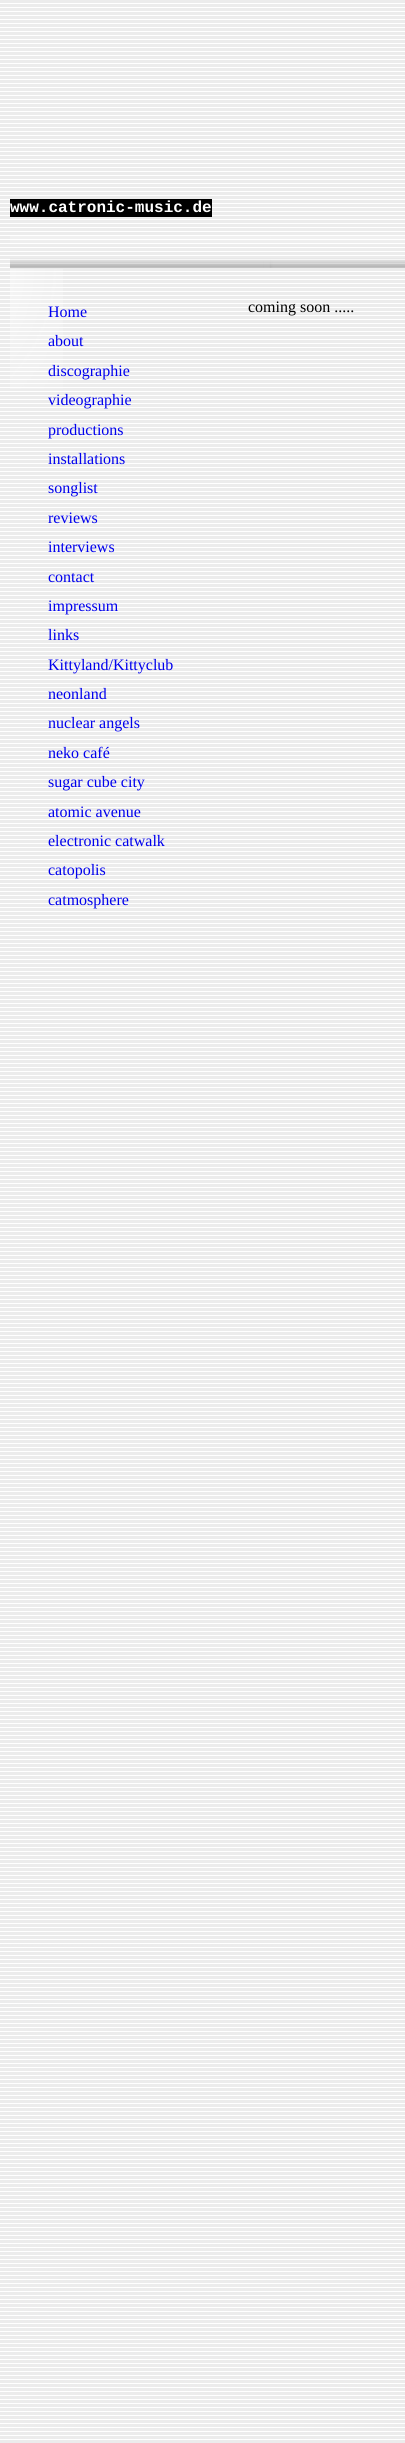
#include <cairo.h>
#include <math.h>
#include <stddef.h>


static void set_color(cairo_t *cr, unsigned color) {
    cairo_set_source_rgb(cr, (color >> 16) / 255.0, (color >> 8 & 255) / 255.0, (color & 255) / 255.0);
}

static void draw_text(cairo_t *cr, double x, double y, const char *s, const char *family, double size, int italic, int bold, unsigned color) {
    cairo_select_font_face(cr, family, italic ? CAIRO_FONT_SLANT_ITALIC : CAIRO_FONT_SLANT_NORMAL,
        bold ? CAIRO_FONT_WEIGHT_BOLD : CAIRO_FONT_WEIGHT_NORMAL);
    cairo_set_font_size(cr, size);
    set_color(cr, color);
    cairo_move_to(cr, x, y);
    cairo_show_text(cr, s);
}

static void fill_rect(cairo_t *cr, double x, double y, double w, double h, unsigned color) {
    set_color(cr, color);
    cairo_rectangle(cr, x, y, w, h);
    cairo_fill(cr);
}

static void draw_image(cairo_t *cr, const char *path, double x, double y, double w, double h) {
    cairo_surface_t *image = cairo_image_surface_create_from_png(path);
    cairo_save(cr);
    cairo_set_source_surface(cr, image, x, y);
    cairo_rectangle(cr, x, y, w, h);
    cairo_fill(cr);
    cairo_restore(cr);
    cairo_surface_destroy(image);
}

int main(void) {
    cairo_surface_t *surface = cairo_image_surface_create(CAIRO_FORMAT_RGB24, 405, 2443);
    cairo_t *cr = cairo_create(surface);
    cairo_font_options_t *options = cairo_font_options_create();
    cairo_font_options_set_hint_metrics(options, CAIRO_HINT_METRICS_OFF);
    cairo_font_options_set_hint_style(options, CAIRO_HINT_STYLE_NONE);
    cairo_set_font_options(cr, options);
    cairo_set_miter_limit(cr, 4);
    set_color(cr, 0xFFFFFF);
    cairo_paint(cr);
    draw_image(cr, "assets/img1.png", 0, 0, 405, 2443);
    fill_rect(cr, 10, 199, 202, 18, 0x000000);
    draw_text(cr, 10, 212, "www.catronic-music.de", "Liberation Mono", 16, 0, 1, 0xFFFFFF);
    draw_image(cr, "assets/img2.png", 10, 236, 395, 32);
    draw_image(cr, "assets/img3.png", 10, 269, 53, 120);
    draw_text(cr, 48, 317, "Home", "Liberation Serif", 16, 0, 0, 0x0000EE);
    draw_text(cr, 48, 346, "about", "Liberation Serif", 16, 0, 0, 0x0000EE);
    draw_text(cr, 48, 376, "discographie", "Liberation Serif", 16, 0, 0, 0x0000EE);
    draw_text(cr, 48, 405, "videographie", "Liberation Serif", 16, 0, 0, 0x0000EE);
    draw_text(cr, 48, 435, "productions", "Liberation Serif", 16, 0, 0, 0x0000EE);
    draw_text(cr, 48, 464, "installations", "Liberation Serif", 16, 0, 0, 0x0000EE);
    draw_text(cr, 48, 493, "songlist", "Liberation Serif", 16, 0, 0, 0x0000EE);
    draw_text(cr, 48, 523, "reviews", "Liberation Serif", 16, 0, 0, 0x0000EE);
    draw_text(cr, 48, 552, "interviews", "Liberation Serif", 16, 0, 0, 0x0000EE);
    draw_text(cr, 48, 582, "contact", "Liberation Serif", 16, 0, 0, 0x0000EE);
    draw_text(cr, 48, 611, "impressum", "Liberation Serif", 16, 0, 0, 0x0000EE);
    draw_text(cr, 48, 640, "links", "Liberation Serif", 16, 0, 0, 0x0000EE);
    draw_text(cr, 48, 670, "Kittyland/Kittyclub", "Liberation Serif", 16, 0, 0, 0x0000EE);
    draw_text(cr, 48, 699, "neonland", "Liberation Serif", 16, 0, 0, 0x0000EE);
    draw_text(cr, 48, 728, "nuclear angels", "Liberation Serif", 16, 0, 0, 0x0000EE);
    draw_text(cr, 48, 758, "neko café", "Liberation Serif", 16, 0, 0, 0x0000EE);
    draw_text(cr, 48, 787, "sugar cube city", "Liberation Serif", 16, 0, 0, 0x0000EE);
    draw_text(cr, 48, 817, "atomic avenue", "Liberation Serif", 16, 0, 0, 0x0000EE);
    draw_text(cr, 48, 846, "electronic catwalk", "Liberation Serif", 16, 0, 0, 0x0000EE);
    draw_text(cr, 48, 875, "catopolis", "Liberation Serif", 16, 0, 0, 0x0000EE);
    draw_text(cr, 48, 905, "catmosphere", "Liberation Serif", 16, 0, 0, 0x0000EE);
    draw_text(cr, 248, 312, "coming soon .....", "Liberation Serif", 16, 0, 0, 0x000000);
    cairo_surface_write_to_png(surface, "output.png");
    cairo_font_options_destroy(options);
    cairo_destroy(cr);
    cairo_surface_destroy(surface);
    return 0;
}
